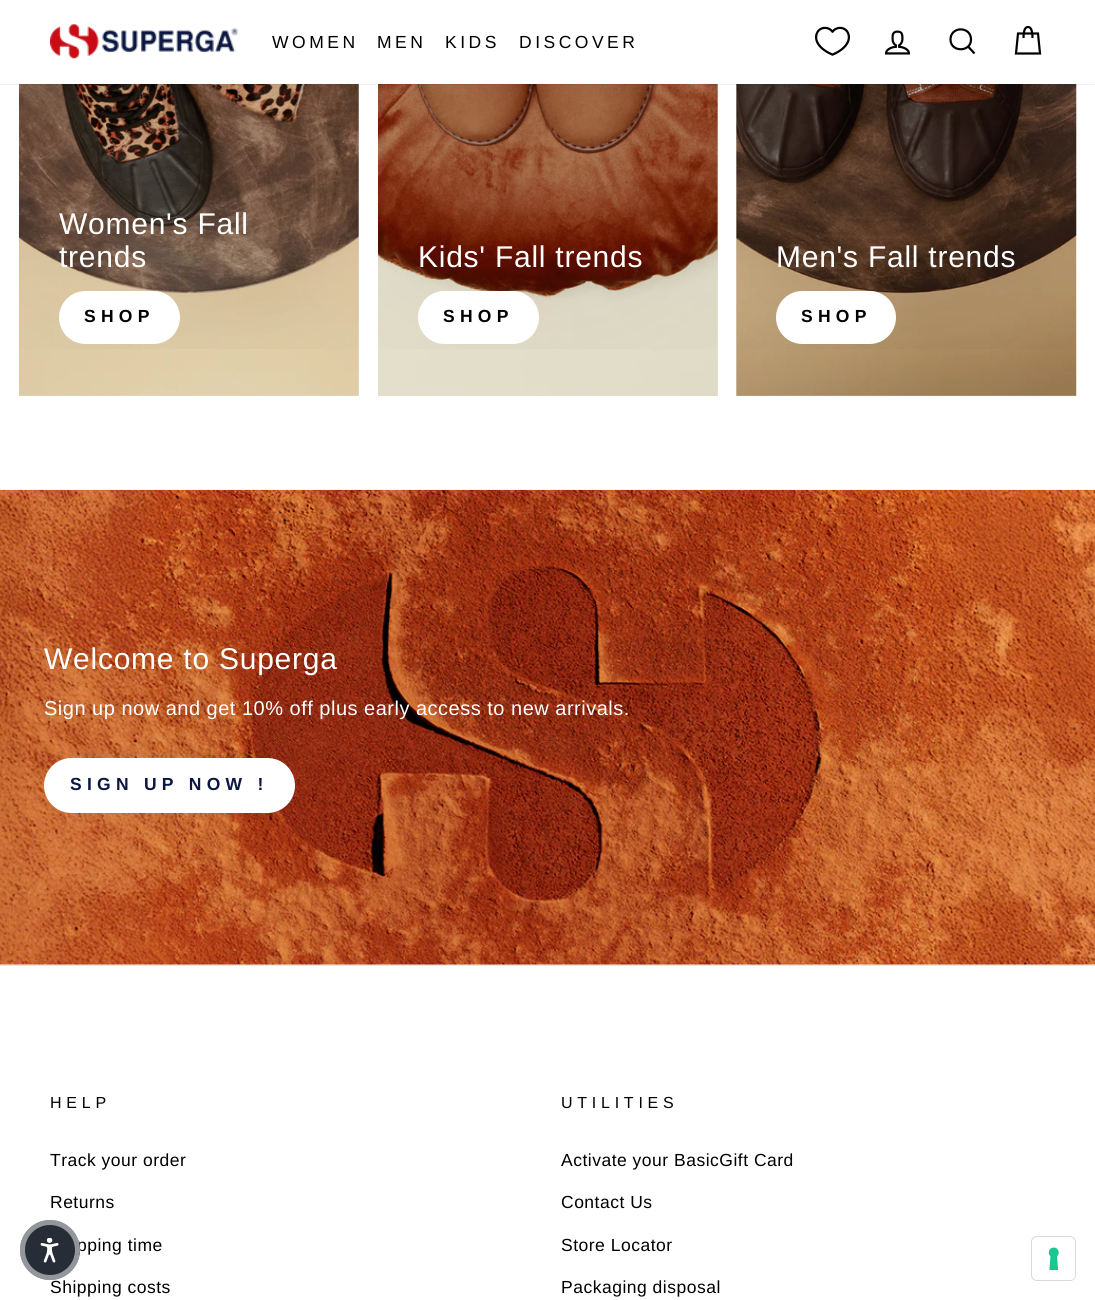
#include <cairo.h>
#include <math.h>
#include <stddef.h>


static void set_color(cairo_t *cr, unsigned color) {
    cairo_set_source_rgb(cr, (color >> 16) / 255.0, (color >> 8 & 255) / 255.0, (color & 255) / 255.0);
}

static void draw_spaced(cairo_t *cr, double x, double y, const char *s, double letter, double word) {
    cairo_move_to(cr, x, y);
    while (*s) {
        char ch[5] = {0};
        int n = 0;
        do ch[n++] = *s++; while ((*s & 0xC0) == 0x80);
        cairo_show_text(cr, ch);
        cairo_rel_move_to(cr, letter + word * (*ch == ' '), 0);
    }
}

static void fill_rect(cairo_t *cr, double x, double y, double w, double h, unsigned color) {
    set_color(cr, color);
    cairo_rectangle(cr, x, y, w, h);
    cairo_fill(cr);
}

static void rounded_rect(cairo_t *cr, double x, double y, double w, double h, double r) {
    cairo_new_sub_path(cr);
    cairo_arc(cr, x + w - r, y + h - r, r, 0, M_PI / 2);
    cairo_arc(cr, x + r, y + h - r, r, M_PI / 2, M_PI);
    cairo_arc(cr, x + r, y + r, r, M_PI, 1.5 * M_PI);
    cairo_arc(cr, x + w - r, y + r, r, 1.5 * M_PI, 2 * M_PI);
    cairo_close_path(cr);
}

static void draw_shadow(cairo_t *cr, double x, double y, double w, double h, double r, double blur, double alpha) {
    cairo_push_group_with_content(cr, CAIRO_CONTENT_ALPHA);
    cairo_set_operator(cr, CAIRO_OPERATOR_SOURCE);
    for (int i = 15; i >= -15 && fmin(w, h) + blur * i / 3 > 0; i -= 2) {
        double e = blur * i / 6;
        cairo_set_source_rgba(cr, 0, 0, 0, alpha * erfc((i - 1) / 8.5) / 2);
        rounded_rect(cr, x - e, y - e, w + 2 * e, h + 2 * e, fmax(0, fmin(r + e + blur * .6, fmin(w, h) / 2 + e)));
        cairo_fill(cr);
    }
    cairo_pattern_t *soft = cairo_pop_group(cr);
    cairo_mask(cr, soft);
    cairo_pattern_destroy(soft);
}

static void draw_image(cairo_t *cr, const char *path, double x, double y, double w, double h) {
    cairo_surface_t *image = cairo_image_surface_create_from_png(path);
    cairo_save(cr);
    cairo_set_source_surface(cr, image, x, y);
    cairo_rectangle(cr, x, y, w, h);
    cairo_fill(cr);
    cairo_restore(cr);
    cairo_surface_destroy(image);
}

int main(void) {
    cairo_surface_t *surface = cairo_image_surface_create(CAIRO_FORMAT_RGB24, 1095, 1300);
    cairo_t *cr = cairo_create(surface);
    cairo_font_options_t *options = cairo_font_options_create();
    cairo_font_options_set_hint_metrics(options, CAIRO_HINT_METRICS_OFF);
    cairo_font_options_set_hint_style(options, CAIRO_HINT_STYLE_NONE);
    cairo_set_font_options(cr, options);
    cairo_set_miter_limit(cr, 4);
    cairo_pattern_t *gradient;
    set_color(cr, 0xFFFFFF);
    cairo_paint(cr);
    fill_rect(cr, 736, 84, 340, 312, 0xE6E6E6);
    fill_rect(cr, 378, 84, 340, 312, 0xE6E6E6);
    fill_rect(cr, 19, 84, 340, 312, 0xE6E6E6);
    draw_image(cr, "assets/img4.png", 19, 84, 340, 312);
    gradient = cairo_pattern_create_radial(0, 0, 0, 0, 0, 1);
    cairo_pattern_set_matrix(gradient, &(cairo_matrix_t){1.0 / 594, 0, 0, 1.0 / 729, -1.0 * 189 / 594, -1.0 * 5.6 / 729});
    cairo_pattern_add_color_stop_rgba(gradient, 0, 0, 0, 0, 0.1);
    cairo_pattern_add_color_stop_rgba(gradient, 0.6, 0, 0, 0, 0);
    cairo_set_source(cr, gradient);
    cairo_pattern_destroy(gradient);
    cairo_rectangle(cr, 19, 84, 340, 265);
    cairo_fill(cr);
    draw_image(cr, "assets/img5.png", 378, 84, 340, 312);
    gradient = cairo_pattern_create_radial(0, 0, 0, 0, 0, 1);
    cairo_pattern_set_matrix(gradient, &(cairo_matrix_t){1.0 / 594, 0, 0, 1.0 / 729, -1.0 * 548 / 594, -1.0 * 5.6 / 729});
    cairo_pattern_add_color_stop_rgba(gradient, 0, 0, 0, 0, 0.1);
    cairo_pattern_add_color_stop_rgba(gradient, 0.6, 0, 0, 0, 0);
    cairo_set_source(cr, gradient);
    cairo_pattern_destroy(gradient);
    cairo_rectangle(cr, 378, 84, 340, 265);
    cairo_fill(cr);
    draw_image(cr, "assets/img6.png", 736, 84, 341, 312);
    gradient = cairo_pattern_create_radial(0, 0, 0, 0, 0, 1);
    cairo_pattern_set_matrix(gradient, &(cairo_matrix_t){1.0 / 594, 0, 0, 1.0 / 729, -1.0 * 906 / 594, -1.0 * 5.6 / 729});
    cairo_pattern_add_color_stop_rgba(gradient, 0, 0, 0, 0, 0.1);
    cairo_pattern_add_color_stop_rgba(gradient, 0.6, 0, 0, 0, 0);
    cairo_set_source(cr, gradient);
    cairo_pattern_destroy(gradient);
    cairo_rectangle(cr, 736, 84, 340, 265);
    cairo_fill(cr);
    set_color(cr, 0x000000);
    draw_shadow(cr, 0, 0, 1095, 84, 0, 0.5, 0.2);
    fill_rect(cr, 0, 0, 1095, 84, 0xFFFFFF);
    draw_image(cr, "assets/img1.png", 50, 24, 188, 35);
    cairo_select_font_face(cr, "Liberation Sans", CAIRO_FONT_SLANT_NORMAL, CAIRO_FONT_WEIGHT_NORMAL);
    cairo_set_font_size(cr, 17.5);
    set_color(cr, 0x000000);
    draw_spaced(cr, 272, 48, "WOMEN", 3.5, 0);
    draw_spaced(cr, 377, 48, "MEN", 3.5, 0);
    draw_spaced(cr, 445, 48, "KIDS", 3.5, 0);
    draw_spaced(cr, 519, 48, "DISCOVER", 3.5, 0);
    draw_image(cr, "assets/img2.png", 815, 26, 35, 30);
    draw_image(cr, "assets/img3.png", 884, 30, 27, 25);
    cairo_new_path(cr);
    cairo_move_to(cr, 971, 39.5);
    cairo_curve_to(cr, 971, 52.5, 950.5, 52.5, 950.5, 39.5);
    cairo_curve_to(cr, 950.5, 26, 971, 26, 971, 39.5);
    cairo_close_path(cr);
    cairo_move_to(cr, 974.5, 53.5);
    cairo_line_to(cr, 968, 46.5);
    cairo_set_line_width(cr, 2.2);
    cairo_stroke(cr);
    cairo_new_path(cr);
    cairo_move_to(cr, 1023.5, 38);
    cairo_curve_to(cr, 1023.5, 29.5, 1025.5, 27, 1028, 27);
    cairo_curve_to(cr, 1030.5, 27, 1032.5, 29.5, 1032.5, 38);
    cairo_move_to(cr, 1018, 33.5);
    cairo_line_to(cr, 1038, 33.5);
    cairo_line_to(cr, 1040, 53.5);
    cairo_line_to(cr, 1016, 53.5);
    cairo_close_path(cr);
    cairo_stroke(cr);
    cairo_set_font_size(cr, 30);
    set_color(cr, 0xFFFFFF);
    draw_spaced(cr, 59, 234, "Women's Fall", 0.75, 0);
    draw_spaced(cr, 59, 267, "trends", 0.75, 0);
    rounded_rect(cr, 59, 291, 121, 53, 26.5);
    cairo_fill(cr);
    cairo_select_font_face(cr, "Liberation Sans", CAIRO_FONT_SLANT_NORMAL, CAIRO_FONT_WEIGHT_BOLD);
    cairo_set_font_size(cr, 17.5);
    set_color(cr, 0x000000);
    draw_spaced(cr, 84, 322, "SHOP", 5.25, 0);
    cairo_select_font_face(cr, "Liberation Sans", CAIRO_FONT_SLANT_NORMAL, CAIRO_FONT_WEIGHT_NORMAL);
    cairo_set_font_size(cr, 30);
    set_color(cr, 0xFFFFFF);
    draw_spaced(cr, 418, 267, "Kids' Fall trends", 0.75, 0);
    rounded_rect(cr, 418, 291, 121, 53, 26.5);
    cairo_fill(cr);
    cairo_select_font_face(cr, "Liberation Sans", CAIRO_FONT_SLANT_NORMAL, CAIRO_FONT_WEIGHT_BOLD);
    cairo_set_font_size(cr, 17.5);
    set_color(cr, 0x000000);
    draw_spaced(cr, 443, 322, "SHOP", 5.25, 0);
    cairo_select_font_face(cr, "Liberation Sans", CAIRO_FONT_SLANT_NORMAL, CAIRO_FONT_WEIGHT_NORMAL);
    cairo_set_font_size(cr, 30);
    set_color(cr, 0xFFFFFF);
    draw_spaced(cr, 776, 267, "Men's Fall trends", 0.75, 0);
    rounded_rect(cr, 776, 291, 120, 53, 26.5);
    cairo_fill(cr);
    cairo_select_font_face(cr, "Liberation Sans", CAIRO_FONT_SLANT_NORMAL, CAIRO_FONT_WEIGHT_BOLD);
    cairo_set_font_size(cr, 17.5);
    set_color(cr, 0x000000);
    draw_spaced(cr, 801, 322, "SHOP", 5.25, 0);
    draw_image(cr, "assets/img7.png", 0, 489, 1095, 476);
    cairo_select_font_face(cr, "Liberation Sans", CAIRO_FONT_SLANT_NORMAL, CAIRO_FONT_WEIGHT_NORMAL);
    cairo_set_font_size(cr, 30);
    set_color(cr, 0xFFFFFF);
    draw_spaced(cr, 44, 669, "Welcome to Superga", 0.75, 0);
    cairo_set_font_size(cr, 20);
    draw_spaced(cr, 44, 715, "Sign up now and get 10% off plus early access to new arrivals.", 0.5, 0);
    rounded_rect(cr, 44, 758, 251, 55, 27.5);
    cairo_fill(cr);
    cairo_select_font_face(cr, "Liberation Sans", CAIRO_FONT_SLANT_NORMAL, CAIRO_FONT_WEIGHT_BOLD);
    cairo_set_font_size(cr, 17.5);
    set_color(cr, 0x0B1742);
    draw_spaced(cr, 70, 790, "SIGN UP NOW !", 5.25, 0);
    fill_rect(cr, 0, 965, 1095, 1, 0xE8E8E1);
    cairo_select_font_face(cr, "Liberation Sans", CAIRO_FONT_SLANT_NORMAL, CAIRO_FONT_WEIGHT_NORMAL);
    cairo_set_font_size(cr, 16);
    set_color(cr, 0x000000);
    draw_spaced(cr, 50, 1108, "HELP", 4.75, 0);
    cairo_set_font_size(cr, 17.5);
    draw_spaced(cr, 50, 1166, "Track your order", 0.5, 0);
    draw_spaced(cr, 50, 1208, "Returns", 0.5, 0);
    draw_spaced(cr, 77, 1251, "pping time", 0.5, 0);
    draw_spaced(cr, 50, 1293, "Shipping costs", 0.5, 0);
    cairo_set_font_size(cr, 16);
    draw_spaced(cr, 561, 1108, "UTILITIES", 4.75, 0);
    cairo_set_font_size(cr, 17.5);
    draw_spaced(cr, 561, 1166, "Activate your BasicGift Card", 0.5, 0);
    draw_spaced(cr, 561, 1208, "Contact Us", 0.5, 0);
    draw_spaced(cr, 561, 1251, "Store Locator", 0.5, 0);
    draw_spaced(cr, 561, 1293, "Packaging disposal", 0.5, 0);
    set_color(cr, 0x272D36);
    cairo_new_path(cr);
    cairo_arc(cr, 50, 1250, 30, 0, 2 * M_PI);
    cairo_fill(cr);
    cairo_arc(cr, 50, 1250, 27.5, 0, 2 * M_PI);
    cairo_set_source_rgba(cr, 1, 1, 1, 0.5);
    cairo_set_line_width(cr, 5);
    cairo_stroke(cr);
    draw_image(cr, "assets/img8.png", 40, 1238, 19, 25);
    rounded_rect(cr, 1031.5, 1236.5, 44, 44, 5.5);
    set_color(cr, 0xD9D9D9);
    cairo_set_line_width(cr, 1);
    cairo_stroke(cr);
    set_color(cr, 0xFFFFFF);
    rounded_rect(cr, 1033, 1238, 42, 42, 5);
    cairo_fill(cr);
    draw_image(cr, "assets/img9.png", 1048, 1247, 11, 23);
    cairo_surface_write_to_png(surface, "output.png");
    cairo_font_options_destroy(options);
    cairo_destroy(cr);
    cairo_surface_destroy(surface);
    return 0;
}
